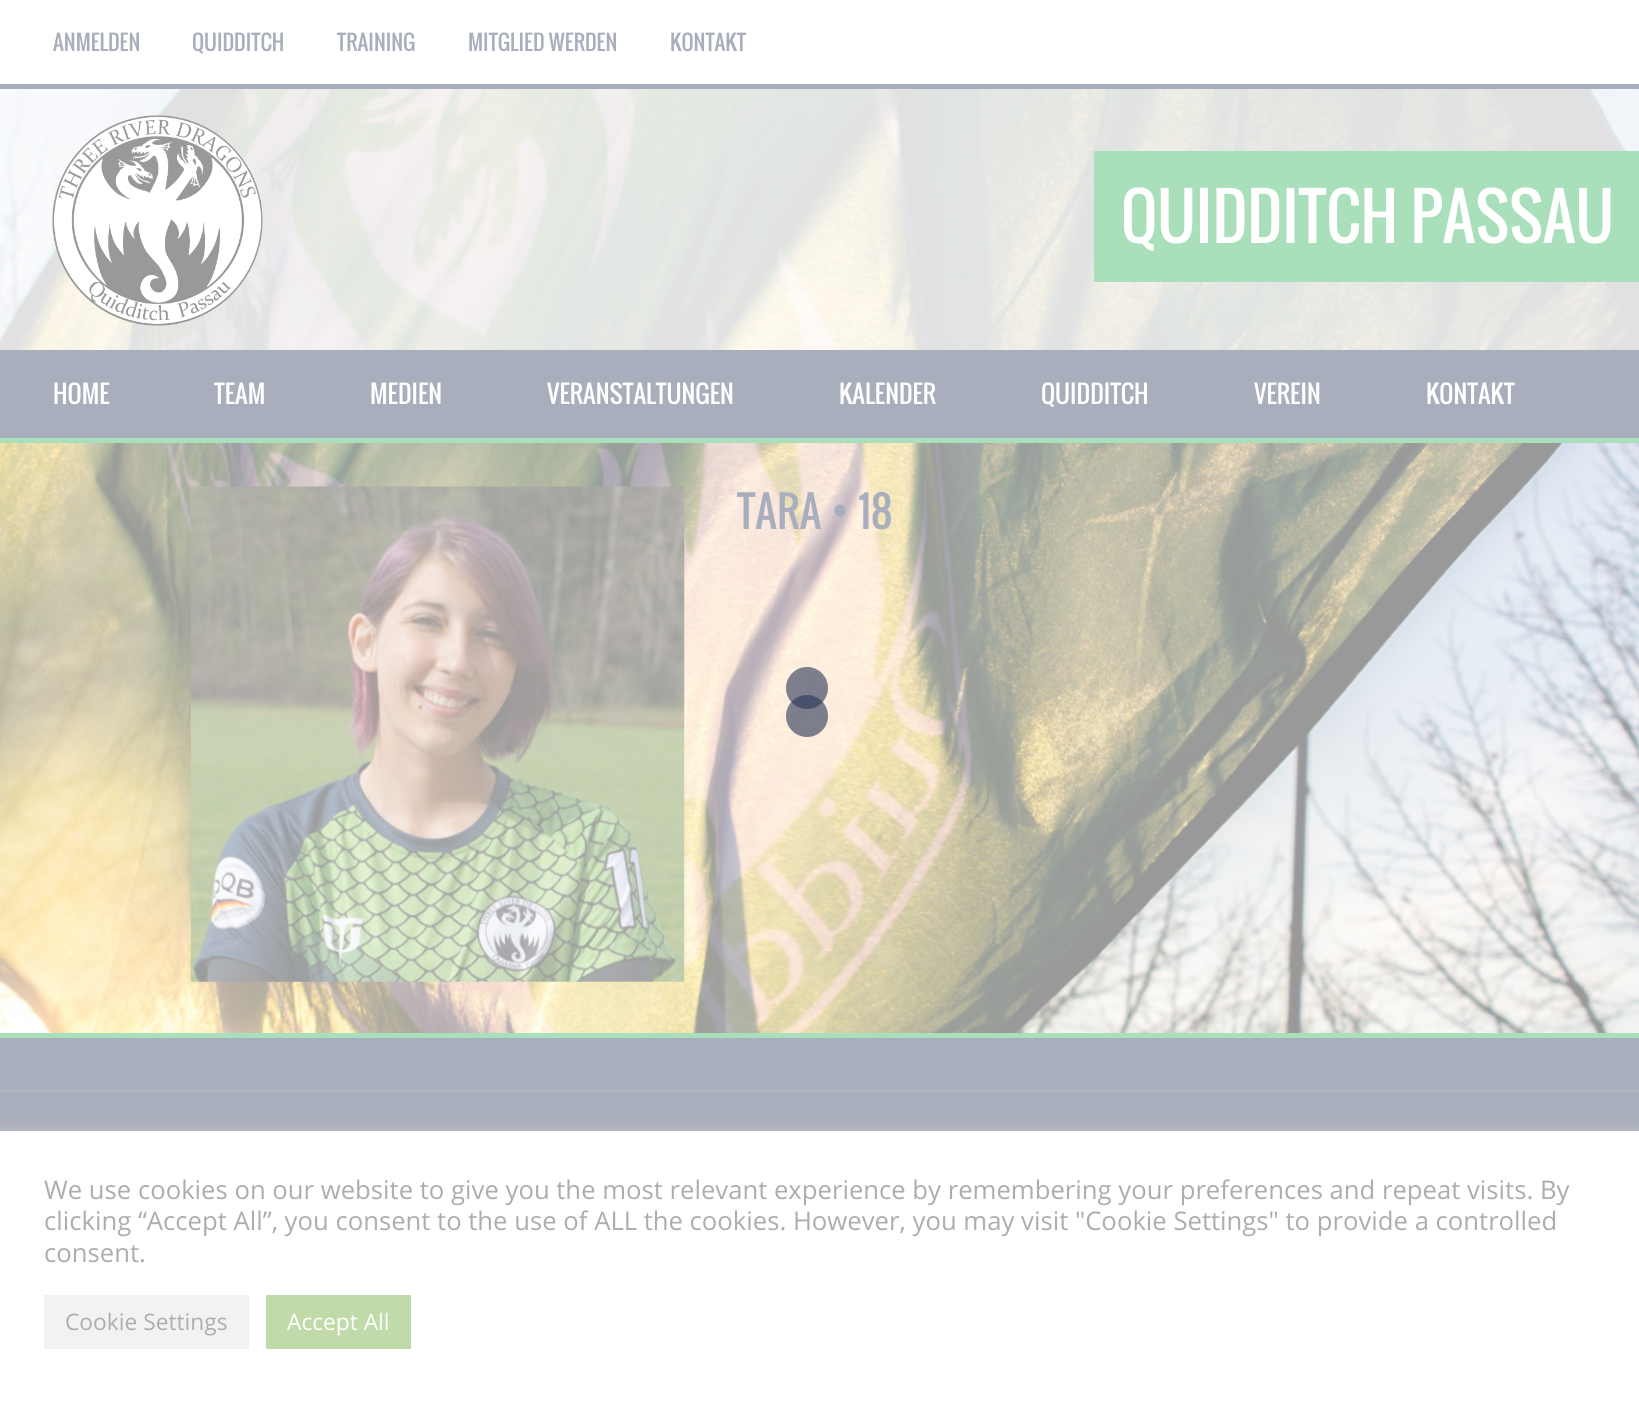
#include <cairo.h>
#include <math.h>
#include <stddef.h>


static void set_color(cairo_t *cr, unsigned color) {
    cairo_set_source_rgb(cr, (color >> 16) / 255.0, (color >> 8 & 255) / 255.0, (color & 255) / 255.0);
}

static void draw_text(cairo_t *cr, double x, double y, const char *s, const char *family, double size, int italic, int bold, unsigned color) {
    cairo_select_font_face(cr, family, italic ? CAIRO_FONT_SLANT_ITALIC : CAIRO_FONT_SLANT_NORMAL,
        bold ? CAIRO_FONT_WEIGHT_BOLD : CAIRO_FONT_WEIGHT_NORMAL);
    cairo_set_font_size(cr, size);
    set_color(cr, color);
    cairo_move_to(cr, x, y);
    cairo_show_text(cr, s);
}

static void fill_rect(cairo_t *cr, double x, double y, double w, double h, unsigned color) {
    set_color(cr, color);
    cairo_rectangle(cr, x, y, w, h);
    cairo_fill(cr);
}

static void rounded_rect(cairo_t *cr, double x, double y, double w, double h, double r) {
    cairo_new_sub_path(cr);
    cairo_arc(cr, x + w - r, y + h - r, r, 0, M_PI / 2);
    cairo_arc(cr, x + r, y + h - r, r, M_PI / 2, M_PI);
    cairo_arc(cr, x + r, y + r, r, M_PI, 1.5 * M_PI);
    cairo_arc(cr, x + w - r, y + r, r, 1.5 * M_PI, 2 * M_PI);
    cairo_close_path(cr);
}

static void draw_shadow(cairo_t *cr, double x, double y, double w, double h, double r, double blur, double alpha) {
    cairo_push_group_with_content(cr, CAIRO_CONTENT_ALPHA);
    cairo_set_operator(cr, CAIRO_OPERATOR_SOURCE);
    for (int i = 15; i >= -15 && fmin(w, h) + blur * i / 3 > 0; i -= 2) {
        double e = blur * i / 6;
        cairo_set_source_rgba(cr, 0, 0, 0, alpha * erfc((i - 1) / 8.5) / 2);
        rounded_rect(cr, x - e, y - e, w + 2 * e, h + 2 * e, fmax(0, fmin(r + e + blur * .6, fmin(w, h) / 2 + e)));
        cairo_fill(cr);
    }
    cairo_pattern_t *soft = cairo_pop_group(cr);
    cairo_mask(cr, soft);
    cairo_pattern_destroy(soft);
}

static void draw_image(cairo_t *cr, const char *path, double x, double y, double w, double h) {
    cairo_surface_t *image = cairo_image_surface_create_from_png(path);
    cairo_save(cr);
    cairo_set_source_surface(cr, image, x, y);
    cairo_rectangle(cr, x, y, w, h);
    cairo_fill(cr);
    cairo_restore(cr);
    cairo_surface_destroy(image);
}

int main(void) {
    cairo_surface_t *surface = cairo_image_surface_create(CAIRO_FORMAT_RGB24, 1639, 1401);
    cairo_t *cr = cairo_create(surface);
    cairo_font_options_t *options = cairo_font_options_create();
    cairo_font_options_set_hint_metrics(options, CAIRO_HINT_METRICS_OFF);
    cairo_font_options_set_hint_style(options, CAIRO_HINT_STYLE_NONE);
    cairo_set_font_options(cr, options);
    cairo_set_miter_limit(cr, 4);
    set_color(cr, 0xFFFFFF);
    cairo_paint(cr);
    draw_image(cr, "assets/img1.png", 0, 89, 1639, 944);
    fill_rect(cr, 0, 84, 1639, 5, 0xA9AEBC);
    draw_text(cr, 53, 51, "ANMELDEN", "Oswald", 21, 0, 0, 0xA9AEBC);
    draw_text(cr, 192, 51, "QUIDDITCH", "Oswald", 21, 0, 0, 0xA9AEBC);
    draw_text(cr, 337, 51, "TRAINING", "Oswald", 21, 0, 0, 0xA9AEBC);
    draw_text(cr, 468, 51, "MITGLIED WERDEN", "Oswald", 21, 0, 0, 0xA9AEBC);
    draw_text(cr, 670, 51, "KONTAKT", "Oswald", 21, 0, 0, 0xA9AEBC);
    cairo_set_source_rgba(cr, 1, 1, 1, 0.7);
    cairo_rectangle(cr, 0, 89, 1639, 261);
    cairo_fill(cr);
    draw_image(cr, "assets/img2.png", 52, 115, 211, 211);
    fill_rect(cr, 1094, 151, 545, 131, 0xA9DFBA);
    draw_text(cr, 1121, 243, "QUIDDITCH PASSAU", "Oswald", 63, 0, 0, 0xFFFFFF);
    fill_rect(cr, 0, 350, 1639, 88, 0xA9AEBC);
    fill_rect(cr, 0, 438, 1639, 5, 0xA9DFBA);
    draw_text(cr, 53, 404, "HOME", "Oswald", 24.5, 0, 0, 0xFFFFFF);
    draw_text(cr, 214, 404, "TEAM", "Oswald", 24.5, 0, 0, 0xFFFFFF);
    draw_text(cr, 370, 404, "MEDIEN", "Oswald", 24.5, 0, 0, 0xFFFFFF);
    draw_text(cr, 547, 404, "VERANSTALTUNGEN", "Oswald", 24.5, 0, 0, 0xFFFFFF);
    draw_text(cr, 839, 404, "KALENDER", "Oswald", 24.5, 0, 0, 0xFFFFFF);
    draw_text(cr, 1041, 404, "QUIDDITCH", "Oswald", 24.5, 0, 0, 0xFFFFFF);
    draw_text(cr, 1254, 404, "VEREIN", "Oswald", 24.5, 0, 0, 0xFFFFFF);
    draw_text(cr, 1426, 404, "KONTAKT", "Oswald", 24.5, 0, 0, 0xFFFFFF);
    draw_image(cr, "assets/img3.png", 190, 486, 495, 496);
    draw_text(cr, 737, 529, "TARA • 18", "Oswald", 42, 0, 0, 0xA9AEBC);
    fill_rect(cr, 0, 1038, 1639, 93, 0xA9AEBC);
    fill_rect(cr, 0, 1033, 1639, 5, 0xA9DFBA);
    fill_rect(cr, 0, 1090, 1639, 2, 0xB1B6C3);
    set_color(cr, 0xDEDDDD);
    draw_shadow(cr, 0, 1129, 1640, 271, 0, 9, 0.3);
    fill_rect(cr, 0, 1131, 1639, 270, 0xFFFFFF);
    draw_text(cr, 44, 1199, "We use cookies on our website to give you the most relevant experience by remembering your preferences and repeat visits. By", "Open Sans", 25.67, 0, 0, 0xADADAD);
    draw_text(cr, 44, 1230, "clicking “Accept All”, you consent to the use of ALL the cookies. However, you may visit \"Cookie Settings\" to provide a controlled", "Open Sans", 25.67, 0, 0, 0xADADAD);
    draw_text(cr, 44, 1262, "consent.", "Open Sans", 25.67, 0, 0, 0xADADAD);
    fill_rect(cr, 44, 1295, 205, 54, 0xF2F2F3);
    draw_text(cr, 65, 1330, "Cookie Settings", "Open Sans", 22.75, 0, 0, 0xADADAD);
    fill_rect(cr, 266, 1295, 145, 54, 0xC0DAA9);
    draw_text(cr, 287, 1330, "Accept All", "Open Sans", 22.75, 0, 0, 0xFFFFFF);
    cairo_set_source_rgba(cr, 0.153, 0.208, 0.345, 0.6);
    cairo_new_path(cr);
    cairo_arc(cr, 807, 688, 21, 0, 2 * M_PI);
    cairo_fill(cr);
    cairo_arc(cr, 807, 716, 21, 0, 2 * M_PI);
    cairo_fill(cr);
    cairo_surface_write_to_png(surface, "output.png");
    cairo_font_options_destroy(options);
    cairo_destroy(cr);
    cairo_surface_destroy(surface);
    return 0;
}
